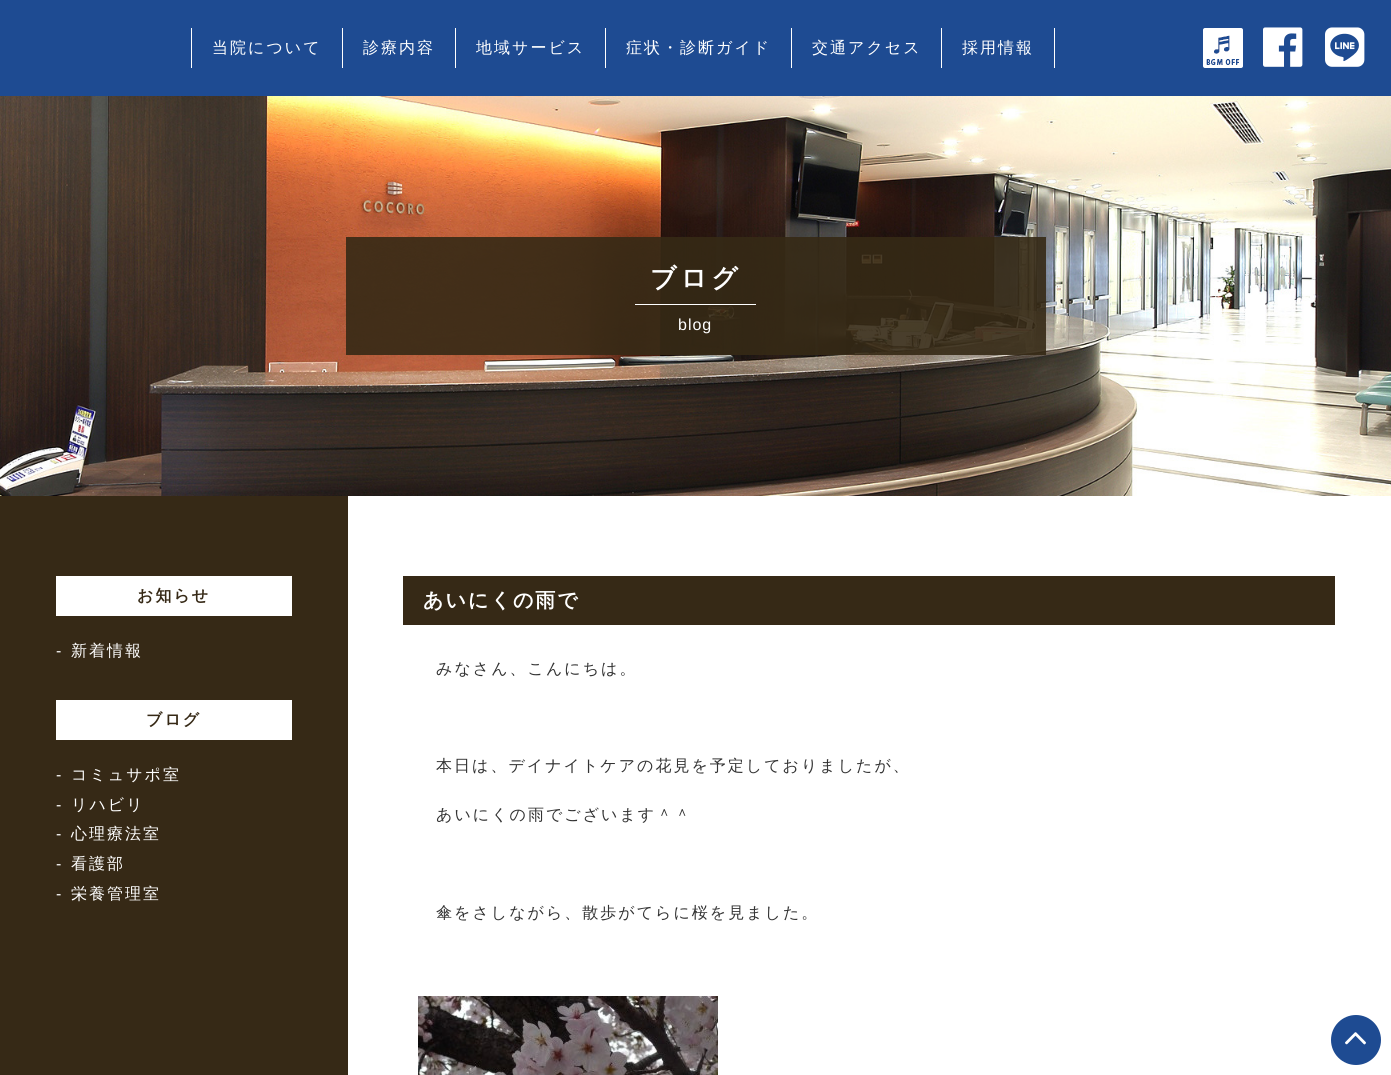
#include <cairo.h>
#include <math.h>
#include <stddef.h>


static void set_color(cairo_t *cr, unsigned color) {
    cairo_set_source_rgb(cr, (color >> 16) / 255.0, (color >> 8 & 255) / 255.0, (color & 255) / 255.0);
}

static void draw_spaced(cairo_t *cr, double x, double y, const char *s, double letter, double word) {
    cairo_move_to(cr, x, y);
    while (*s) {
        char ch[5] = {0};
        int n = 0;
        do ch[n++] = *s++; while ((*s & 0xC0) == 0x80);
        cairo_show_text(cr, ch);
        cairo_rel_move_to(cr, letter + word * (*ch == ' '), 0);
    }
}

static void fill_rect(cairo_t *cr, double x, double y, double w, double h, unsigned color) {
    set_color(cr, color);
    cairo_rectangle(cr, x, y, w, h);
    cairo_fill(cr);
}

static void draw_image(cairo_t *cr, const char *path, double x, double y, double w, double h) {
    cairo_surface_t *image = cairo_image_surface_create_from_png(path);
    cairo_save(cr);
    cairo_set_source_surface(cr, image, x, y);
    cairo_rectangle(cr, x, y, w, h);
    cairo_fill(cr);
    cairo_restore(cr);
    cairo_surface_destroy(image);
}

int main(void) {
    cairo_surface_t *surface = cairo_image_surface_create(CAIRO_FORMAT_RGB24, 1391, 1075);
    cairo_t *cr = cairo_create(surface);
    cairo_font_options_t *options = cairo_font_options_create();
    cairo_font_options_set_hint_metrics(options, CAIRO_HINT_METRICS_OFF);
    cairo_font_options_set_hint_style(options, CAIRO_HINT_STYLE_NONE);
    cairo_set_font_options(cr, options);
    cairo_set_miter_limit(cr, 4);
    set_color(cr, 0xFFFFFF);
    cairo_paint(cr);
    fill_rect(cr, 0, 0, 1391, 96, 0x1E4B92);
    fill_rect(cr, 342, 28, 1, 40, 0xFFFFFF);
    fill_rect(cr, 191, 28, 1, 40, 0xFFFFFF);
    cairo_select_font_face(cr, "WenQuanYi Zen Hei Medium", CAIRO_FONT_SLANT_NORMAL, CAIRO_FONT_WEIGHT_NORMAL);
    cairo_set_font_size(cr, 16);
    draw_spaced(cr, 212, 53, "当院について", 2, 0);
    fill_rect(cr, 455, 28, 1, 40, 0xFFFFFF);
    draw_spaced(cr, 363, 53, "診療内容", 2, 0);
    fill_rect(cr, 605, 28, 1, 40, 0xFFFFFF);
    draw_spaced(cr, 476, 53, "地域サービス", 2, 0);
    fill_rect(cr, 791, 28, 1, 40, 0xFFFFFF);
    draw_spaced(cr, 626, 53, "症状・診断ガイド", 2, 0);
    fill_rect(cr, 941, 28, 1, 40, 0xFFFFFF);
    draw_spaced(cr, 812, 53, "交通アクセス", 2, 0);
    fill_rect(cr, 1054, 28, 1, 40, 0xFFFFFF);
    draw_spaced(cr, 962, 53, "採用情報", 2, 0);
    draw_image(cr, "assets/img1.png", 1203, 28, 40, 40);
    draw_image(cr, "assets/img2.png", 1263, 27, 40, 40);
    draw_image(cr, "assets/img3.png", 1325, 27, 40, 40);
    draw_image(cr, "assets/img4.png", 0, 96, 1391, 400);
    cairo_set_source_rgba(cr, 0.212, 0.161, 0.086, 0.9);
    cairo_rectangle(cr, 346, 237, 700, 118);
    cairo_fill(cr);
    fill_rect(cr, 635, 304, 121, 1, 0xFFFFFF);
    cairo_select_font_face(cr, "WenQuanYi Zen Hei", CAIRO_FONT_SLANT_NORMAL, CAIRO_FONT_WEIGHT_BOLD);
    cairo_set_font_size(cr, 26);
    draw_spaced(cr, 650, 287, "ブログ", 4, 0);
    cairo_select_font_face(cr, "Liberation Sans", CAIRO_FONT_SLANT_NORMAL, CAIRO_FONT_WEIGHT_NORMAL);
    cairo_set_font_size(cr, 16);
    draw_spaced(cr, 678, 330, "blog", 1, 0);
    fill_rect(cr, 0, 496, 348, 579, 0x362916);
    fill_rect(cr, 56, 576, 236, 40, 0xFFFFFF);
    cairo_select_font_face(cr, "WenQuanYi Zen Hei", CAIRO_FONT_SLANT_NORMAL, CAIRO_FONT_WEIGHT_BOLD);
    set_color(cr, 0x362916);
    draw_spaced(cr, 137, 601, "お知らせ", 2, 0);
    cairo_select_font_face(cr, "Liberation Sans", CAIRO_FONT_SLANT_NORMAL, CAIRO_FONT_WEIGHT_NORMAL);
    set_color(cr, 0xFFFFFF);
    draw_spaced(cr, 56, 656, "-", 2, 0);
    cairo_select_font_face(cr, "WenQuanYi Zen Hei Medium", CAIRO_FONT_SLANT_NORMAL, CAIRO_FONT_WEIGHT_NORMAL);
    draw_spaced(cr, 71, 656, "新着情報", 2, 0);
    fill_rect(cr, 56, 700, 236, 40, 0xFFFFFF);
    cairo_select_font_face(cr, "WenQuanYi Zen Hei", CAIRO_FONT_SLANT_NORMAL, CAIRO_FONT_WEIGHT_BOLD);
    set_color(cr, 0x362916);
    draw_spaced(cr, 146, 725, "ブログ", 2, 0);
    cairo_select_font_face(cr, "Liberation Sans", CAIRO_FONT_SLANT_NORMAL, CAIRO_FONT_WEIGHT_NORMAL);
    set_color(cr, 0xFFFFFF);
    draw_spaced(cr, 56, 780, "-", 2, 0);
    cairo_select_font_face(cr, "WenQuanYi Zen Hei Medium", CAIRO_FONT_SLANT_NORMAL, CAIRO_FONT_WEIGHT_NORMAL);
    draw_spaced(cr, 71, 780, "コミュサポ室", 2, 0);
    cairo_select_font_face(cr, "Liberation Sans", CAIRO_FONT_SLANT_NORMAL, CAIRO_FONT_WEIGHT_NORMAL);
    draw_spaced(cr, 56, 810, "-", 2, 0);
    cairo_select_font_face(cr, "WenQuanYi Zen Hei Medium", CAIRO_FONT_SLANT_NORMAL, CAIRO_FONT_WEIGHT_NORMAL);
    draw_spaced(cr, 71, 810, "リハビリ", 2, 0);
    cairo_select_font_face(cr, "Liberation Sans", CAIRO_FONT_SLANT_NORMAL, CAIRO_FONT_WEIGHT_NORMAL);
    draw_spaced(cr, 56, 839, "-", 2, 0);
    cairo_select_font_face(cr, "WenQuanYi Zen Hei Medium", CAIRO_FONT_SLANT_NORMAL, CAIRO_FONT_WEIGHT_NORMAL);
    draw_spaced(cr, 71, 839, "心理療法室", 2, 0);
    cairo_select_font_face(cr, "Liberation Sans", CAIRO_FONT_SLANT_NORMAL, CAIRO_FONT_WEIGHT_NORMAL);
    draw_spaced(cr, 56, 869, "-", 2, 0);
    cairo_select_font_face(cr, "WenQuanYi Zen Hei Medium", CAIRO_FONT_SLANT_NORMAL, CAIRO_FONT_WEIGHT_NORMAL);
    draw_spaced(cr, 71, 869, "看護部", 2, 0);
    cairo_select_font_face(cr, "Liberation Sans", CAIRO_FONT_SLANT_NORMAL, CAIRO_FONT_WEIGHT_NORMAL);
    draw_spaced(cr, 56, 899, "-", 2, 0);
    cairo_select_font_face(cr, "WenQuanYi Zen Hei Medium", CAIRO_FONT_SLANT_NORMAL, CAIRO_FONT_WEIGHT_NORMAL);
    draw_spaced(cr, 71, 899, "栄養管理室", 2, 0);
    fill_rect(cr, 403, 576, 932, 49, 0x362916);
    cairo_select_font_face(cr, "WenQuanYi Zen Hei", CAIRO_FONT_SLANT_NORMAL, CAIRO_FONT_WEIGHT_BOLD);
    cairo_set_font_size(cr, 20);
    set_color(cr, 0xFFFFFF);
    draw_spaced(cr, 423, 607, "あいにくの雨で", 2, 0);
    cairo_select_font_face(cr, "WenQuanYi Zen Hei Medium", CAIRO_FONT_SLANT_NORMAL, CAIRO_FONT_WEIGHT_NORMAL);
    cairo_set_font_size(cr, 16);
    set_color(cr, 0x333333);
    draw_spaced(cr, 436, 674, "みなさん、こんにちは。", 2, 0);
    draw_spaced(cr, 436, 771, "本日は、デイナイトケアの花見を予定しておりましたが、", 2, 0);
    draw_spaced(cr, 436, 820, "あいにくの雨でございます＾＾", 2, 0);
    draw_spaced(cr, 436, 918, "傘をさしながら、散歩がてらに桜を見ました。", 2, 0);
    draw_image(cr, "assets/img5.png", 418, 996, 300, 79);
    set_color(cr, 0x1E4B92);
    cairo_arc(cr, 1356, 1040, 25, 0, 2 * M_PI);
    cairo_fill(cr);
    draw_image(cr, "assets/img6.png", 1345, 1032, 21, 13);
    cairo_surface_write_to_png(surface, "output.png");
    cairo_font_options_destroy(options);
    cairo_destroy(cr);
    cairo_surface_destroy(surface);
    return 0;
}
